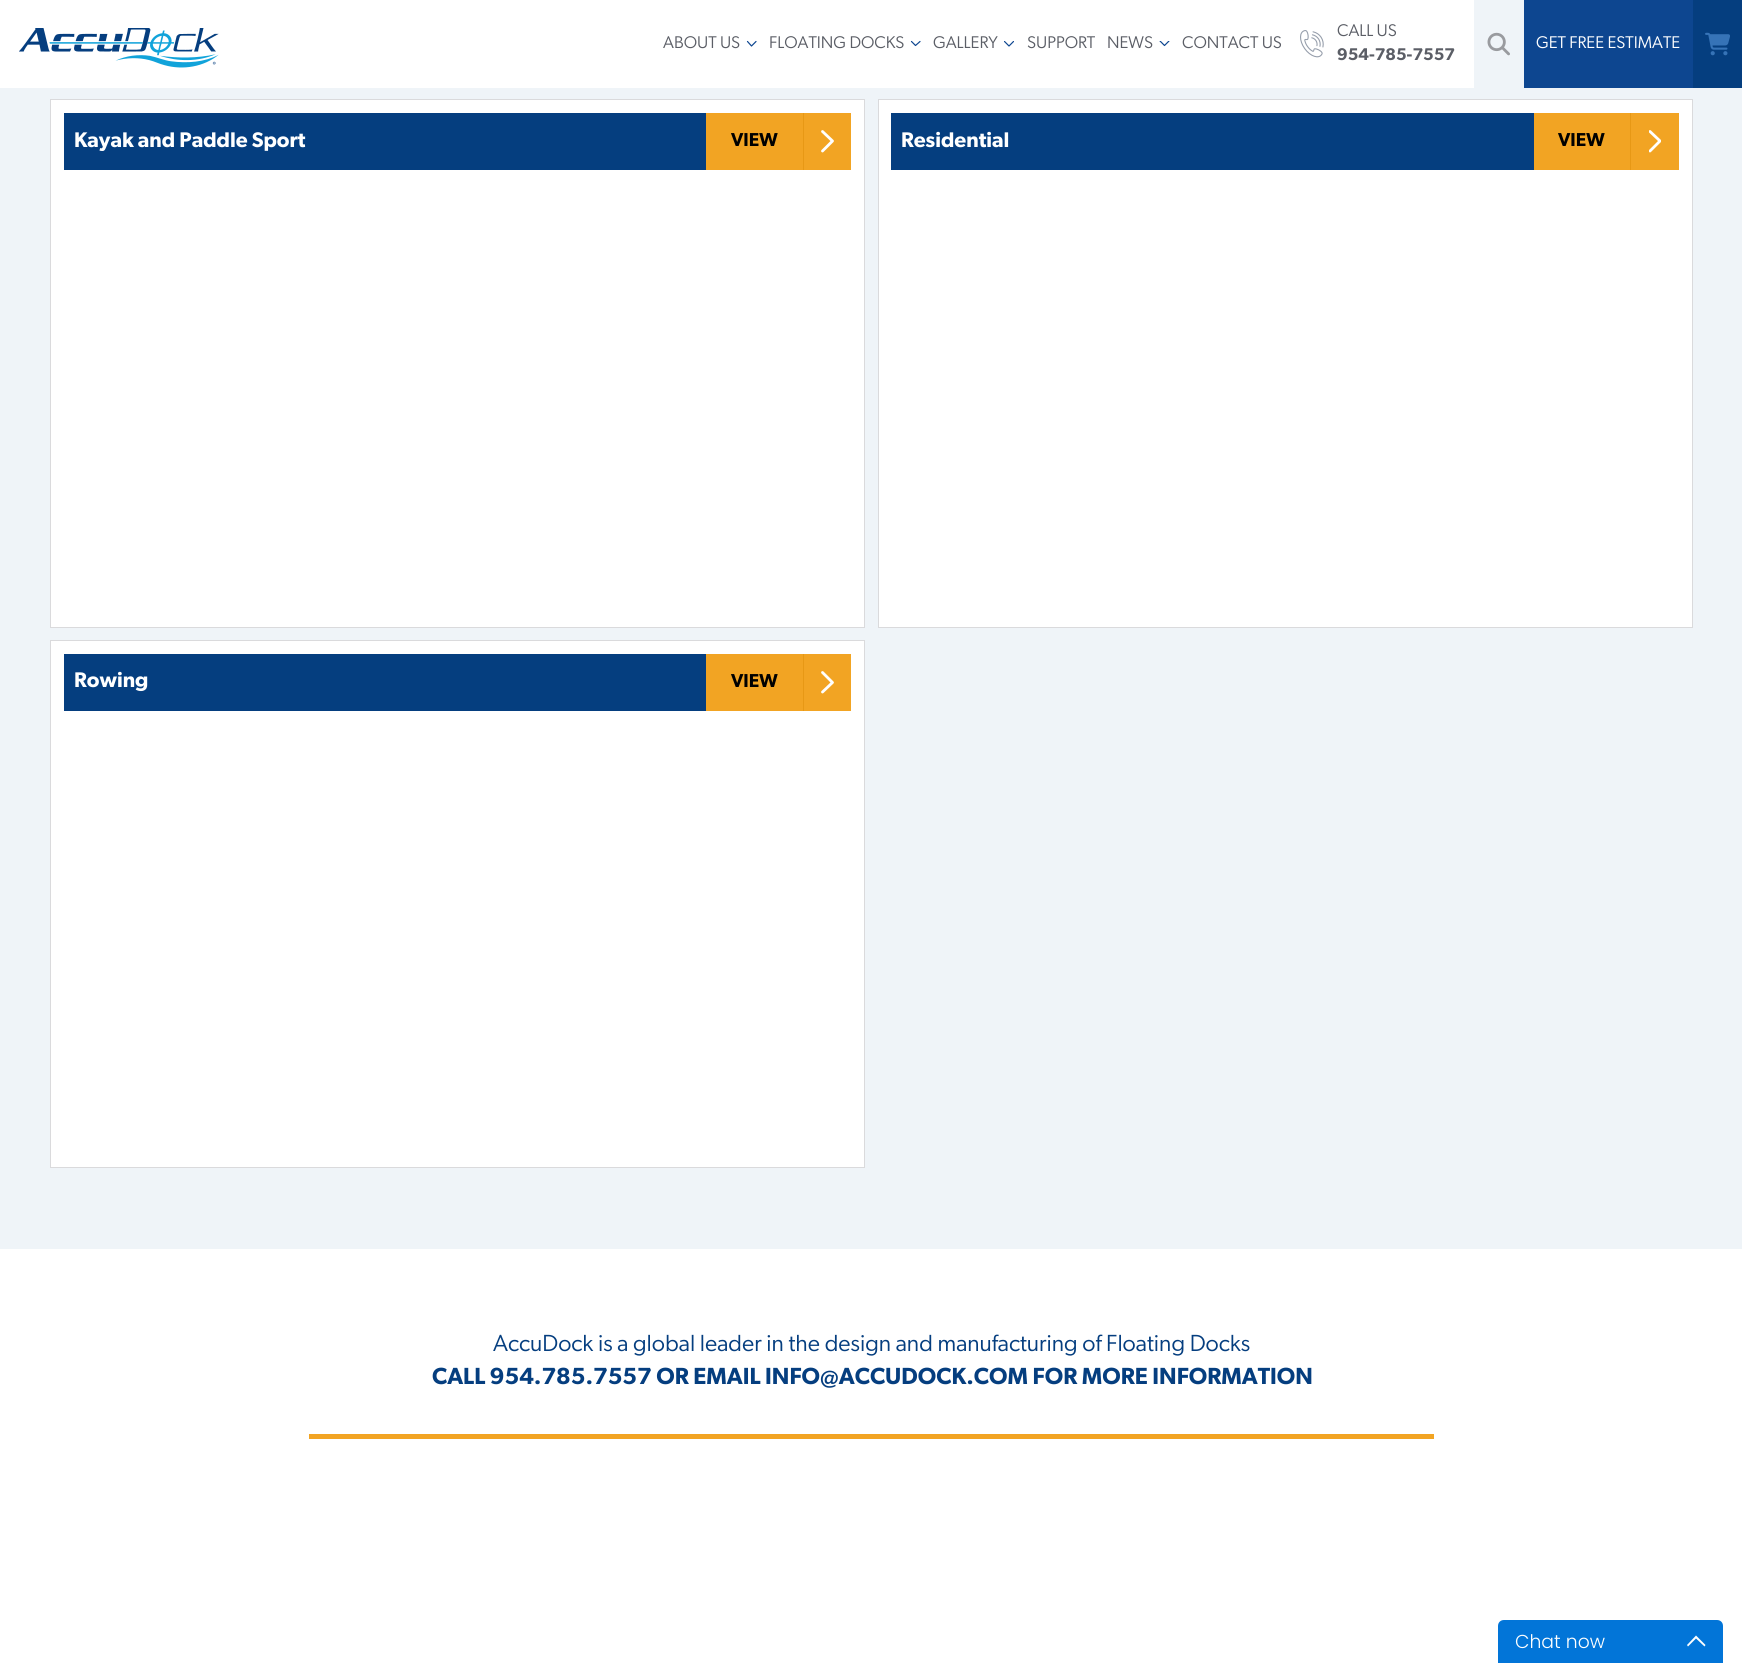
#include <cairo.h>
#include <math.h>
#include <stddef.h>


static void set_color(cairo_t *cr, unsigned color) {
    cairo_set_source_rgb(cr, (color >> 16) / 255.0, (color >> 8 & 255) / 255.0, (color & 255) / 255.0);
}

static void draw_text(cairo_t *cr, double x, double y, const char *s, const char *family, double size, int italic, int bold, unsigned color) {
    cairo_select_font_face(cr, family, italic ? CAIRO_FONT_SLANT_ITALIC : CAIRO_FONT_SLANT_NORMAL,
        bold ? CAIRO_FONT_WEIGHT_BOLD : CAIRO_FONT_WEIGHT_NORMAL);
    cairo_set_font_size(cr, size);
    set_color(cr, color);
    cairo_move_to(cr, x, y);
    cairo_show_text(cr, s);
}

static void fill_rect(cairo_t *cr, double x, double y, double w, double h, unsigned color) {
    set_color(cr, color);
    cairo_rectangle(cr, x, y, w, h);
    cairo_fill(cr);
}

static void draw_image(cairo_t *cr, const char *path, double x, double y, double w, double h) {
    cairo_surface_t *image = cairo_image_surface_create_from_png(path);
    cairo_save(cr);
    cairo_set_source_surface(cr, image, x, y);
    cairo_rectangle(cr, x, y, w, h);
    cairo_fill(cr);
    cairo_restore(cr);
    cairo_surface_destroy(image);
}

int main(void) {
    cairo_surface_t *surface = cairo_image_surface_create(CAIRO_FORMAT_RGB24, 1742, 1663);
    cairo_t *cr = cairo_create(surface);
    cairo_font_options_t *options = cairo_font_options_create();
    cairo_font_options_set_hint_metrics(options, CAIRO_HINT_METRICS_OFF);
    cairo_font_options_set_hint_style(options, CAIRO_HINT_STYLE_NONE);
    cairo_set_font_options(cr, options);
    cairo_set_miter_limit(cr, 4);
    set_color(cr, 0xFFFFFF);
    cairo_paint(cr);
    draw_image(cr, "assets/img1.png", 19, 28, 200, 40);
    draw_text(cr, 663, 48, "ABOUT US", "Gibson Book", 17, 0, 0, 0x5B5E66);
    cairo_new_path(cr);
    cairo_move_to(cr, 756, 41.5);
    cairo_line_to(cr, 751.5, 46);
    cairo_line_to(cr, 747.5, 41.5);
    set_color(cr, 0x0D4690);
    cairo_set_line_width(cr, 1.2);
    cairo_set_line_cap(cr, CAIRO_LINE_CAP_ROUND);
    cairo_set_line_join(cr, CAIRO_LINE_JOIN_ROUND);
    cairo_stroke(cr);
    draw_text(cr, 769, 48, "FLOATING DOCKS", "Gibson Book", 17, 0, 0, 0x5B5E66);
    cairo_new_path(cr);
    cairo_move_to(cr, 920, 41.5);
    cairo_line_to(cr, 915.5, 45.5);
    cairo_line_to(cr, 911.5, 41.5);
    set_color(cr, 0x0D4690);
    cairo_stroke(cr);
    draw_text(cr, 933, 48, "GALLERY", "Gibson Book", 17, 0, 0, 0x5B5E66);
    cairo_save(cr);
    cairo_new_path(cr);
    cairo_move_to(cr, 1014, 41);
    cairo_line_to(cr, 1014, 46.5);
    cairo_line_to(cr, 1004, 46.5);
    cairo_line_to(cr, 1004, 41);
    cairo_close_path(cr);
    cairo_clip(cr);
    cairo_new_path(cr);
    cairo_move_to(cr, 1013.5, 41.5);
    cairo_line_to(cr, 1009, 46);
    cairo_line_to(cr, 1004.5, 41.5);
    set_color(cr, 0x0D4690);
    cairo_stroke(cr);
    cairo_restore(cr);
    draw_text(cr, 1027, 48, "SUPPORT", "Gibson Book", 17, 0, 0, 0x5B5E66);
    draw_text(cr, 1107, 48, "NEWS", "Gibson Book", 17, 0, 0, 0x5B5E66);
    cairo_save(cr);
    cairo_new_path(cr);
    cairo_move_to(cr, 1169.5, 41);
    cairo_line_to(cr, 1169.5, 46.5);
    cairo_line_to(cr, 1159.5, 46.5);
    cairo_line_to(cr, 1159.5, 41);
    cairo_close_path(cr);
    cairo_clip(cr);
    cairo_new_path(cr);
    cairo_move_to(cr, 1169, 41);
    cairo_line_to(cr, 1164.5, 45.5);
    cairo_line_to(cr, 1160, 41);
    set_color(cr, 0x0D4690);
    cairo_stroke(cr);
    cairo_restore(cr);
    draw_text(cr, 1182, 48, "CONTACT US", "Gibson Book", 17, 0, 0, 0x5B5E66);
    draw_image(cr, "assets/img2.png", 1300, 30, 24, 28);
    draw_text(cr, 1337, 36, "CALL US", "Gibson Book", 17, 0, 0, 0x5B5E66);
    draw_text(cr, 1337, 60, "954-785-7557", "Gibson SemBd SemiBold", 17, 0, 0, 0x5B5E66);
    fill_rect(cr, 1474, 0, 50, 88, 0xEFF4F8);
    draw_image(cr, "assets/img3.png", 1487, 32, 23, 24);
    fill_rect(cr, 1524, 0, 169, 88, 0x0D4690);
    draw_text(cr, 1536, 48, "GET FREE ESTIMATE", "Gibson Book", 17, 0, 0, 0xFFFFFF);
    fill_rect(cr, 1693, 0, 49, 88, 0x053E7F);
    draw_image(cr, "assets/img4.png", 1705, 32, 25, 24);
    fill_rect(cr, 0, 88, 1742, 1161, 0xEFF4F8);
    set_color(cr, 0xFFFFFF);
    cairo_rectangle(cr, 50.5, 99.5, 814, 528);
    cairo_fill_preserve(cr);
    set_color(cr, 0xDADADC);
    cairo_set_line_width(cr, 1);
    cairo_set_line_cap(cr, CAIRO_LINE_CAP_BUTT);
    cairo_set_line_join(cr, CAIRO_LINE_JOIN_MITER);
    cairo_stroke(cr);
    fill_rect(cr, 64, 113, 642, 57, 0x053E7F);
    draw_text(cr, 74, 147, "Kayak and Paddle Sport", "Gibson SemBd SemiBold", 21.25, 0, 0, 0xFFFFFF);
    fill_rect(cr, 706, 113, 145, 57, 0xF2A423);
    draw_text(cr, 731, 146, "VIEW", "Gibson SemBd SemiBold", 18.75, 0, 0, 0x000000);
    cairo_new_path(cr);
    cairo_move_to(cr, 822.5, 131.5);
    cairo_line_to(cr, 832.5, 141);
    cairo_line_to(cr, 822.5, 151);
    set_color(cr, 0xFFFFFF);
    cairo_set_line_width(cr, 2.8);
    cairo_set_line_cap(cr, CAIRO_LINE_CAP_ROUND);
    cairo_set_line_join(cr, CAIRO_LINE_JOIN_ROUND);
    cairo_stroke(cr);
    fill_rect(cr, 803, 113, 1, 57, 0xE79815);
    set_color(cr, 0xFFFFFF);
    cairo_rectangle(cr, 878.5, 99.5, 814, 528);
    cairo_fill_preserve(cr);
    set_color(cr, 0xDADADC);
    cairo_set_line_width(cr, 1);
    cairo_set_line_cap(cr, CAIRO_LINE_CAP_BUTT);
    cairo_set_line_join(cr, CAIRO_LINE_JOIN_MITER);
    cairo_stroke(cr);
    fill_rect(cr, 891, 113, 643, 57, 0x053E7F);
    draw_text(cr, 901, 147, "Residential", "Gibson SemBd SemiBold", 21.25, 0, 0, 0xFFFFFF);
    fill_rect(cr, 1534, 113, 145, 57, 0xF2A423);
    draw_text(cr, 1558, 146, "VIEW", "Gibson SemBd SemiBold", 18.75, 0, 0, 0x000000);
    cairo_save(cr);
    cairo_rectangle(cr, 1649, 130, 12, 23);
    cairo_clip(cr);
    cairo_new_path(cr);
    cairo_move_to(cr, 1650, 131.5);
    cairo_line_to(cr, 1660, 141);
    cairo_line_to(cr, 1650, 151);
    set_color(cr, 0xFFFFFF);
    cairo_set_line_width(cr, 2.8);
    cairo_set_line_cap(cr, CAIRO_LINE_CAP_ROUND);
    cairo_set_line_join(cr, CAIRO_LINE_JOIN_ROUND);
    cairo_stroke(cr);
    cairo_restore(cr);
    fill_rect(cr, 1630, 113, 1, 57, 0xE79815);
    set_color(cr, 0xFFFFFF);
    cairo_rectangle(cr, 50.5, 640.5, 814, 527);
    cairo_fill_preserve(cr);
    set_color(cr, 0xDADADC);
    cairo_stroke(cr);
    fill_rect(cr, 64, 654, 642, 57, 0x053E7F);
    draw_text(cr, 74, 687, "Rowing", "Gibson SemBd SemiBold", 21.25, 0, 0, 0xFFFFFF);
    fill_rect(cr, 706, 654, 145, 57, 0xF2A423);
    draw_text(cr, 731, 687, "VIEW", "Gibson SemBd SemiBold", 18.75, 0, 0, 0x000000);
    cairo_new_path(cr);
    cairo_move_to(cr, 822.5, 672.5);
    cairo_line_to(cr, 832.5, 682.5);
    cairo_line_to(cr, 822.5, 692);
    set_color(cr, 0xFFFFFF);
    cairo_set_line_width(cr, 2.8);
    cairo_set_line_cap(cr, CAIRO_LINE_CAP_ROUND);
    cairo_set_line_join(cr, CAIRO_LINE_JOIN_ROUND);
    cairo_stroke(cr);
    fill_rect(cr, 803, 654, 1, 57, 0xE79815);
    draw_text(cr, 493, 1351, "AccuDock is a global leader in the design and manufacturing of Floating Docks", "Gibson Book", 23.4, 0, 0, 0x053E7F);
    draw_text(cr, 432, 1384, "CALL 954.785.7557 OR EMAIL INFO@ACCUDOCK.COM FOR MORE INFORMATION", "Gibson SemBd SemiBold", 23.4, 0, 0, 0x053E7F);
    fill_rect(cr, 309, 1434, 1125, 5, 0xF2A423);
    set_color(cr, 0x0275D8);
    cairo_new_path(cr);
    cairo_move_to(cr, 1504, 1620);
    cairo_line_to(cr, 1717, 1620);
    cairo_curve_to(cr, 1720.5, 1620, 1723, 1622.5, 1723, 1626);
    cairo_line_to(cr, 1723, 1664);
    cairo_line_to(cr, 1498, 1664);
    cairo_line_to(cr, 1498, 1626);
    cairo_curve_to(cr, 1498, 1622.5, 1500.5, 1620, 1504, 1620);
    cairo_close_path(cr);
    cairo_fill(cr);
    draw_text(cr, 1515, 1648, "Chat now", "Poppins Light", 18.75, 0, 0, 0xFFFFFF);
    cairo_new_path(cr);
    cairo_move_to(cr, 1696, 1635.5);
    cairo_line_to(cr, 1705.5, 1645);
    cairo_line_to(cr, 1704.5, 1646.5);
    cairo_line_to(cr, 1696, 1638.5);
    cairo_line_to(cr, 1688, 1646.5);
    cairo_line_to(cr, 1687, 1645);
    cairo_close_path(cr);
    cairo_fill(cr);
    cairo_surface_write_to_png(surface, "output.png");
    cairo_font_options_destroy(options);
    cairo_destroy(cr);
    cairo_surface_destroy(surface);
    return 0;
}
